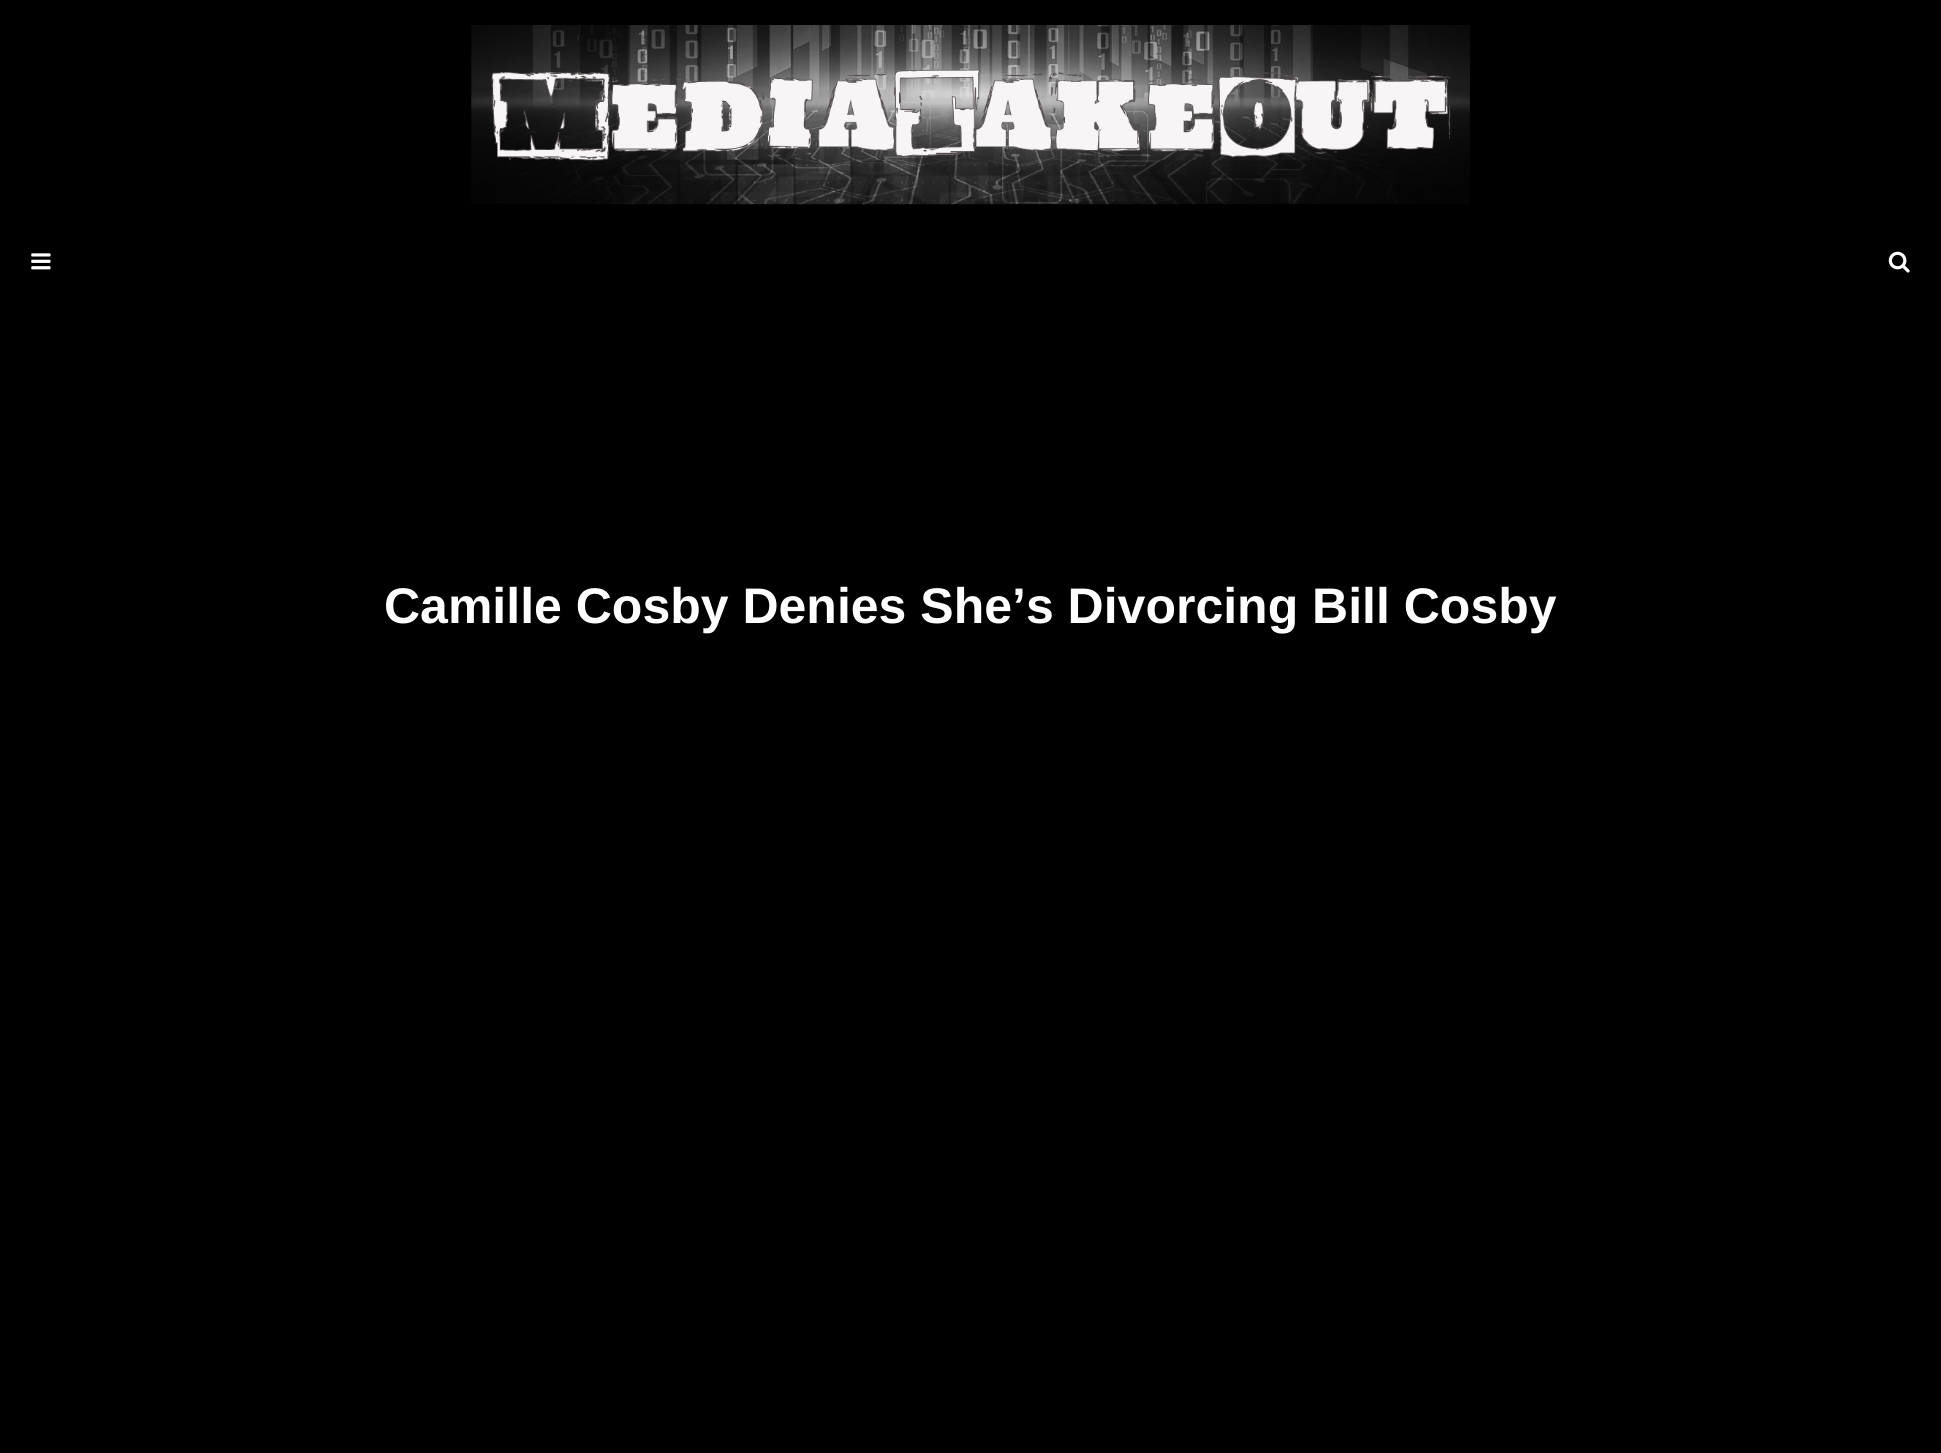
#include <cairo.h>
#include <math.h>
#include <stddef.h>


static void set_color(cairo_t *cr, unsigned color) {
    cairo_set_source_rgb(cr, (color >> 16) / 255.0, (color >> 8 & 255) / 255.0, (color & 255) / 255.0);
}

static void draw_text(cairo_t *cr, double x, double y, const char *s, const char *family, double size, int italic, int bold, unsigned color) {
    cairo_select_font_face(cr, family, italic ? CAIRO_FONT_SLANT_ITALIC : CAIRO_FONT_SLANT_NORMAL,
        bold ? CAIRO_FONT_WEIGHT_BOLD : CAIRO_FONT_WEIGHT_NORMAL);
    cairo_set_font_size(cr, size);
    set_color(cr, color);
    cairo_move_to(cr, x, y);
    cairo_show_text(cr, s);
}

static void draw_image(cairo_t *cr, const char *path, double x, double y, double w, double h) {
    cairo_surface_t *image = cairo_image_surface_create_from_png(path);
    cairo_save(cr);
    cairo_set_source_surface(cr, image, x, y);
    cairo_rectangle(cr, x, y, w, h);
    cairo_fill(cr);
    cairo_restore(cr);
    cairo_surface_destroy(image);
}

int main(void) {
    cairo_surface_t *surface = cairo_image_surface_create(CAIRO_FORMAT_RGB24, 1941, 1453);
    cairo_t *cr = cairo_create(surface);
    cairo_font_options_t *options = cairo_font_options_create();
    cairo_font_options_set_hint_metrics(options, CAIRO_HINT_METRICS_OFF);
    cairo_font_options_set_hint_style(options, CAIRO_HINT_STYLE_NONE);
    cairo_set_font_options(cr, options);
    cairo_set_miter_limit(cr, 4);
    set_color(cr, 0x000000);
    cairo_paint(cr);
    draw_image(cr, "assets/img1.png", 471, 25, 999, 180);
    draw_image(cr, "assets/img2.png", 31, 253, 20, 17);
    draw_image(cr, "assets/img3.png", 1888, 251, 22, 22);
    draw_text(cr, 384, 623, "Camille Cosby Denies She’s Divorcing Bill Cosby", "Liberation Sans", 50, 0, 1, 0xFFFFFF);
    cairo_surface_write_to_png(surface, "output.png");
    cairo_font_options_destroy(options);
    cairo_destroy(cr);
    cairo_surface_destroy(surface);
    return 0;
}
